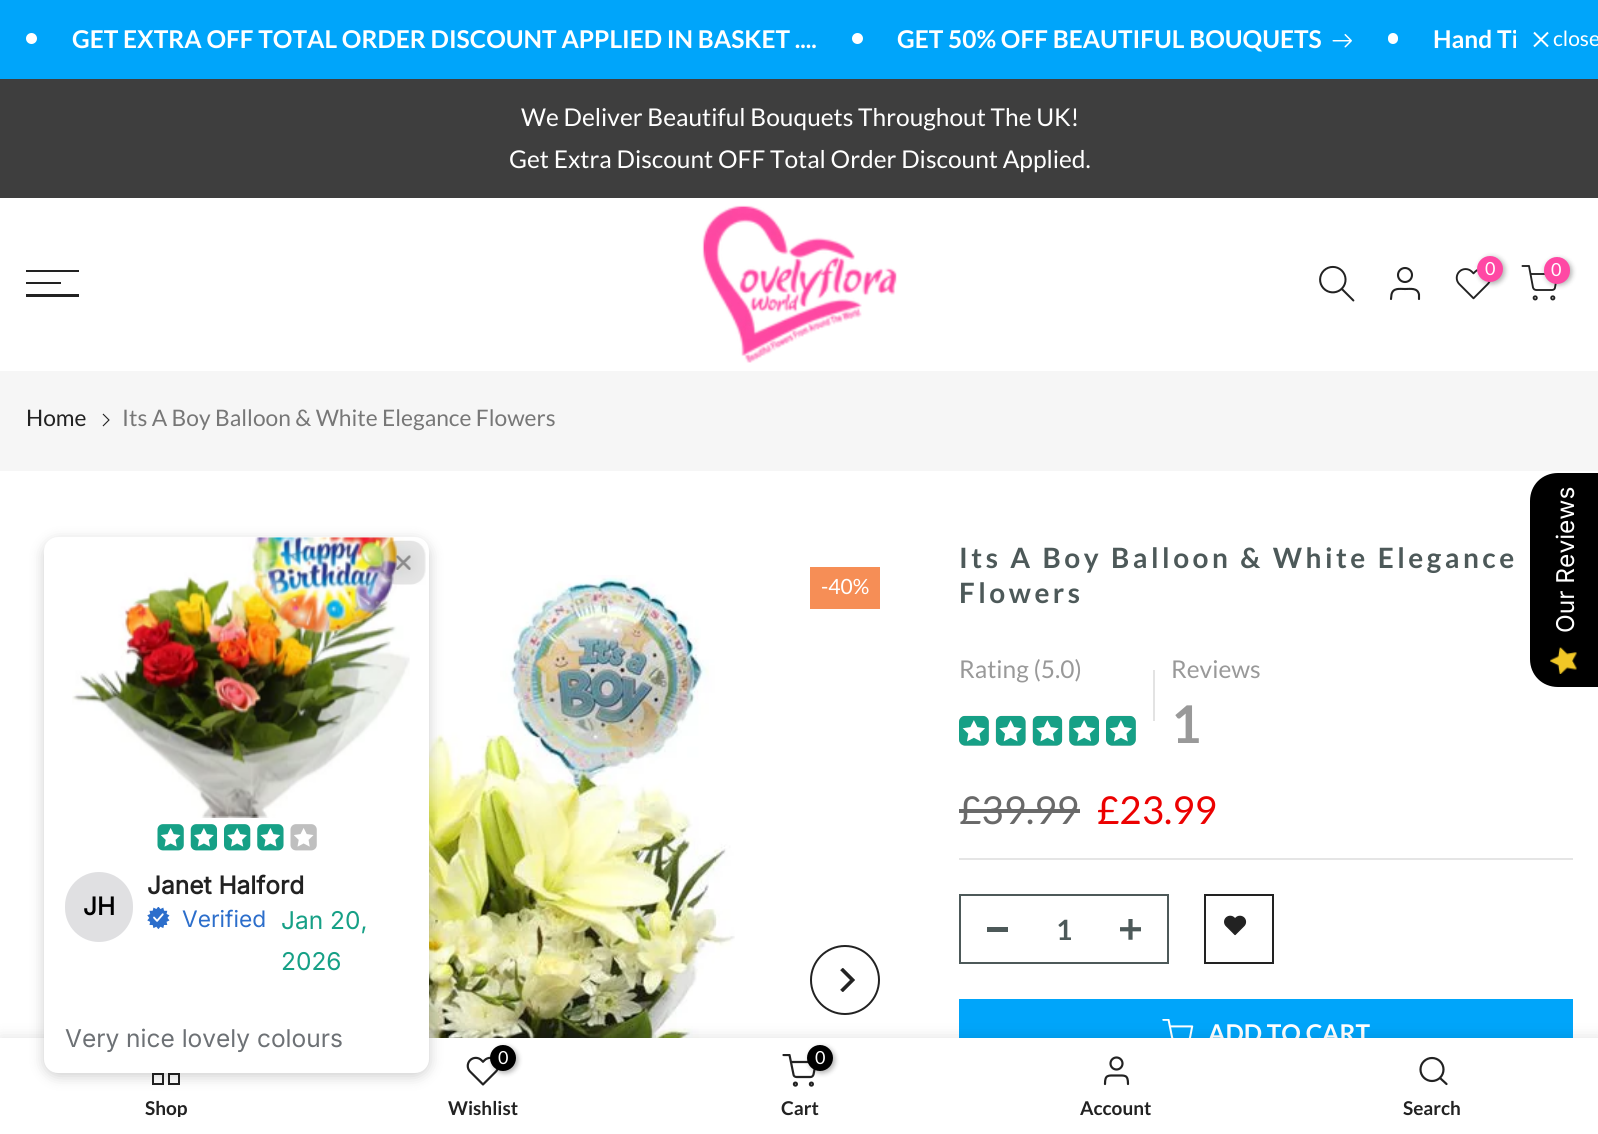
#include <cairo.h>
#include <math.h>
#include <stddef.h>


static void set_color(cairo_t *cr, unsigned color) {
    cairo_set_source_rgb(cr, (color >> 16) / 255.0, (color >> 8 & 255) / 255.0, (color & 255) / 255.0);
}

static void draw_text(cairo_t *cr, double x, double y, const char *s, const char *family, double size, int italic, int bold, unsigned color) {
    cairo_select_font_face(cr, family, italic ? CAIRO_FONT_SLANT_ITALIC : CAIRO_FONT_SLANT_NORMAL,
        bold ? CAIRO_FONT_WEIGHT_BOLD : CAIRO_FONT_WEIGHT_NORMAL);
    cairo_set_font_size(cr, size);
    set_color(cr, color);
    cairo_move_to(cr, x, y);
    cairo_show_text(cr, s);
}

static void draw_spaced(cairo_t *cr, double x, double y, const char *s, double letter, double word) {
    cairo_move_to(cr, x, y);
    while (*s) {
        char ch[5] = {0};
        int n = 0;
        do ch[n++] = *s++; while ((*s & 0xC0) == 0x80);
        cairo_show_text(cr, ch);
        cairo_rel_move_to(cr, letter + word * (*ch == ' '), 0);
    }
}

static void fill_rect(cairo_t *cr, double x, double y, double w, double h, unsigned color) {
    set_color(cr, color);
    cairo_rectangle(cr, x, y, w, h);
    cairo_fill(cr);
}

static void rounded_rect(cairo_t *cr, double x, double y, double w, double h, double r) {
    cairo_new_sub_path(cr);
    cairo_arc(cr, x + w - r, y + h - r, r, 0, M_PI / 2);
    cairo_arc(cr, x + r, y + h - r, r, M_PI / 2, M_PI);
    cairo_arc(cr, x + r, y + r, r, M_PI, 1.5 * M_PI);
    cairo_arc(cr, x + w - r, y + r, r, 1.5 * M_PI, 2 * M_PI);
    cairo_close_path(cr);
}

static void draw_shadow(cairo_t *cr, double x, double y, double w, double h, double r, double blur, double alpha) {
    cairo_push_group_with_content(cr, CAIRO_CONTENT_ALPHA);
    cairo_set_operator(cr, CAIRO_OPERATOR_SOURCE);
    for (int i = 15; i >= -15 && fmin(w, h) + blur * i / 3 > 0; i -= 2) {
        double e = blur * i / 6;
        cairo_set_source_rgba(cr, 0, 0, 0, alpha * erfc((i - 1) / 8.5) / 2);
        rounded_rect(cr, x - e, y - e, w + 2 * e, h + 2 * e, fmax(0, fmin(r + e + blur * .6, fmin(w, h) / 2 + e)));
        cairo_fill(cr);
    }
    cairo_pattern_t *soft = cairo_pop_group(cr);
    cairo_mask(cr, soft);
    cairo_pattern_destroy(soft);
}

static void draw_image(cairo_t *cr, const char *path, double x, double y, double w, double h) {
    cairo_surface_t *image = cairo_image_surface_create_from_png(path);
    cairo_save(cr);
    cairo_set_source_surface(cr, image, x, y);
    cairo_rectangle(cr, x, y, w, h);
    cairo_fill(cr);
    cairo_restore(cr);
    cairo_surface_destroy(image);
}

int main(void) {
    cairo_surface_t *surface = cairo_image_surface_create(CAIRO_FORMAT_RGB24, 1598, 1134);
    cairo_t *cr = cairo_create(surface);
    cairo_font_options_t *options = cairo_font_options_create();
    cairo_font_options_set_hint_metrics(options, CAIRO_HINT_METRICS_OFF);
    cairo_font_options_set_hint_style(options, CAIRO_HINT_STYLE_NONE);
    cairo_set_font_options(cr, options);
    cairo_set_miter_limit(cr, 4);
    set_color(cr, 0xFFFFFF);
    cairo_paint(cr);
    fill_rect(cr, 0, 0, 1598, 79, 0x00A5FA);
    set_color(cr, 0xFFFFFF);
    cairo_arc(cr, 31.5, 38.5, 5.5, 0, 2 * M_PI);
    cairo_fill(cr);
    draw_text(cr, 72, 48, "GET EXTRA OFF TOTAL ORDER DISCOUNT APPLIED IN BASKET ....", "Lato", 24.5, 0, 1, 0xFFFFFF);
    cairo_new_path(cr);
    cairo_arc(cr, 857.5, 38.5, 5.5, 0, 2 * M_PI);
    cairo_fill(cr);
    draw_text(cr, 897, 48, "GET 50% OFF BEAUTIFUL BOUQUETS", "Lato", 24.5, 0, 1, 0xFFFFFF);
    draw_image(cr, "assets/img1.png", 1332, 34, 20, 14);
    rounded_rect(cr, 1388, 33, 10, 11, 5);
    cairo_fill(cr);
    cairo_save(cr);
    cairo_rectangle(cr, 1370, 19, 146, 41);
    cairo_clip(cr);
    draw_text(cr, 1433, 48, "Hand Ti", "Lato", 24.5, 0, 1, 0xFFFFFF);
    cairo_restore(cr);
    cairo_new_path(cr);
    cairo_move_to(cr, 1548, 32.5);
    cairo_line_to(cr, 1534, 46.5);
    cairo_move_to(cr, 1548, 46.5);
    cairo_line_to(cr, 1534, 32.5);
    cairo_stroke(cr);
    draw_text(cr, 1553, 46, "close", "Lato", 21, 0, 0, 0xFFFFFF);
    fill_rect(cr, 0, 79, 1598, 119, 0x3E3E3E);
    draw_text(cr, 521, 126, "We Deliver Beautiful Bouquets Throughout The UK!", "Lato", 24.5, 0, 0, 0xFFFFFF);
    draw_text(cr, 509, 168, "Get Extra Discount OFF Total Order Discount Applied.", "Lato", 24.5, 0, 0, 0xFFFFFF);
    fill_rect(cr, 26, 270, 53, 2, 0x222222);
    fill_rect(cr, 26, 282, 35, 2, 0x222222);
    fill_rect(cr, 26, 294, 53, 3, 0x222222);
    draw_image(cr, "assets/img2.png", 702, 205, 195, 158);
    draw_image(cr, "assets/img3.png", 1319, 265, 36, 37);
    cairo_arc(cr, 1405, 275, 7, 0, 2 * M_PI);
    cairo_set_line_width(cr, 2.1);
    cairo_stroke(cr);
    cairo_new_path(cr);
    cairo_move_to(cr, 1419, 299);
    cairo_line_to(cr, 1419, 294.5);
    cairo_curve_to(cr, 1417.5, 287.5, 1410.5, 289, 1405, 289);
    cairo_curve_to(cr, 1400, 289, 1393, 287.5, 1391.5, 294.5);
    cairo_line_to(cr, 1391, 299);
    cairo_set_line_cap(cr, CAIRO_LINE_CAP_ROUND);
    cairo_set_line_join(cr, CAIRO_LINE_JOIN_ROUND);
    cairo_stroke(cr);
    draw_image(cr, "assets/img4.png", 1455, 268, 36, 32);
    set_color(cr, 0x000000);
    draw_shadow(cr, 1479, 257, 26, 27, 13, 2.5, 0.3);
    set_color(cr, 0xFF48A4);
    cairo_arc(cr, 1490, 269, 13, 0, 2 * M_PI);
    cairo_fill(cr);
    draw_text(cr, 1485, 275, "0", "Lato", 18, 0, 0, 0xFFFFFF);
    cairo_new_path(cr);
    cairo_move_to(cr, 1522.5, 266);
    cairo_line_to(cr, 1529, 266);
    cairo_line_to(cr, 1533, 287.5);
    cairo_curve_to(cr, 1533.5, 289, 1534.5, 290, 1536.5, 290);
    cairo_line_to(cr, 1552, 290);
    cairo_curve_to(cr, 1553.5, 290, 1555, 289, 1555, 287.5);
    cairo_line_to(cr, 1557.5, 274);
    cairo_line_to(cr, 1530.5, 274);
    set_color(cr, 0x222222);
    cairo_set_line_width(cr, 1.9);
    cairo_stroke(cr);
    set_color(cr, 0x000000);
    draw_shadow(cr, 1545, 259, 27, 26, 13, 2.5, 0.3);
    set_color(cr, 0xFF48A4);
    rounded_rect(cr, 1544, 257, 26, 27, 13);
    cairo_fill(cr);
    draw_text(cr, 1551, 276, "0", "Lato", 18, 0, 0, 0xFFFFFF);
    cairo_new_path(cr);
    cairo_arc(cr, 1535.2, 297.9, 1.6, 0, 2 * M_PI);
    set_color(cr, 0x222222);
    cairo_set_line_cap(cr, CAIRO_LINE_CAP_BUTT);
    cairo_set_line_join(cr, CAIRO_LINE_JOIN_MITER);
    cairo_stroke(cr);
    cairo_arc(cr, 1552.8, 297.9, 1.6, 0, 2 * M_PI);
    cairo_stroke(cr);
    fill_rect(cr, 0, 371, 1598, 100, 0xF6F6F6);
    draw_text(cr, 26, 426, "Home", "Lato", 22.75, 0, 0, 0x222222);
    draw_image(cr, "assets/img5.png", 102, 413, 8, 14);
    draw_text(cr, 122, 426, "Its A Boy Balloon & White Elegance Flowers", "Lato", 22.75, 0, 0, 0x777777);
    draw_image(cr, "assets/img6.png", 429, 575, 306, 463);
    cairo_arc(cr, 845, 980, 34, 0, 2 * M_PI);
    set_color(cr, 0x222222);
    cairo_set_line_width(cr, 2);
    cairo_stroke(cr);
    draw_image(cr, "assets/img7.png", 840, 968, 15, 24);
    fill_rect(cr, 810, 567, 70, 42, 0xF68E56);
    draw_text(cr, 821, 594, "-40%", "Lato", 21, 0, 0, 0xFFFFFF);
    cairo_select_font_face(cr, "Lato", CAIRO_FONT_SLANT_NORMAL, CAIRO_FONT_WEIGHT_BOLD);
    cairo_set_font_size(cr, 28);
    set_color(cr, 0x4D5959);
    draw_spaced(cr, 959, 568, "Its A Boy Balloon & White Elegance", 3.5, 0);
    draw_spaced(cr, 959, 603, "Flowers", 3.5, 0);
    draw_text(cr, 959, 678, "Rating (5.0)", "Lato", 24.5, 0, 0, 0x999999);
    draw_image(cr, "assets/img8.png", 959, 715, 30, 31);
    draw_image(cr, "assets/img9.png", 959, 716, 30, 30);
    draw_image(cr, "assets/img10.png", 962, 720, 23, 22);
    draw_image(cr, "assets/img11.png", 995, 715, 31, 31);
    draw_image(cr, "assets/img12.png", 996, 716, 30, 30);
    draw_image(cr, "assets/img13.png", 999, 720, 23, 22);
    draw_image(cr, "assets/img14.png", 1032, 715, 31, 31);
    draw_image(cr, "assets/img15.png", 1033, 716, 29, 30);
    draw_image(cr, "assets/img16.png", 1036, 720, 23, 22);
    draw_image(cr, "assets/img17.png", 1069, 715, 30, 31);
    draw_image(cr, "assets/img18.png", 1069, 716, 30, 30);
    draw_image(cr, "assets/img19.png", 1073, 720, 23, 22);
    draw_image(cr, "assets/img8.png", 1106, 715, 30, 31);
    draw_image(cr, "assets/img9.png", 1106, 716, 30, 30);
    draw_image(cr, "assets/img10.png", 1109, 720, 23, 22);
    fill_rect(cr, 1153, 670, 2, 51, 0xE3E3E3);
    draw_text(cr, 1171, 678, "Reviews", "Lato", 24.5, 0, 0, 0x999999);
    draw_text(cr, 1171, 743, "1", "Lato", 52, 0, 1, 0x999999);
    fill_rect(cr, 959, 858, 614, 2, 0xE5E5E5);
    draw_text(cr, 959, 824, "£39.99", "Lato", 38.5, 0, 0, 0x696969);
    fill_rect(cr, 959, 809, 121, 4, 0x696969);
    draw_text(cr, 1097, 824, "£23.99", "Lato", 38.5, 0, 0, 0xEC0101);
    cairo_rectangle(cr, 960, 895, 208, 68);
    set_color(cr, 0x4D5959);
    cairo_stroke(cr);
    fill_rect(cr, 987, 927, 21, 5, 0x4D5959);
    draw_text(cr, 1056, 940, "1", "Lato", 28, 0, 1, 0x4D5959);
    draw_image(cr, "assets/img20.png", 1120, 919, 21, 21);
    cairo_rectangle(cr, 1205, 895, 68, 68);
    set_color(cr, 0x222222);
    cairo_stroke(cr);
    draw_image(cr, "assets/img21.png", 1224, 915, 23, 21);
    fill_rect(cr, 959, 999, 614, 39, 0x00A5FA);
    draw_image(cr, "assets/img22.png", 1162, 1019, 32, 19);
    draw_text(cr, 1208, 1042, "ADD TO CART", "Lato", 24.5, 0, 1, 0xFFFFFF);
    set_color(cr, 0x000000);
    cairo_new_path(cr);
    cairo_move_to(cr, 1530, 659);
    cairo_line_to(cr, 1530, 501);
    cairo_curve_to(cr, 1530, 485, 1542, 473, 1558, 473);
    cairo_line_to(cr, 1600, 473);
    cairo_line_to(cr, 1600, 687);
    cairo_line_to(cr, 1558, 687);
    cairo_curve_to(cr, 1542, 687, 1530, 675, 1530, 659);
    cairo_close_path(cr);
    cairo_fill(cr);
    cairo_save(cr);
    cairo_translate(cr, 1574, 633);
    cairo_rotate(cr, -90 * M_PI / 180);
    draw_text(cr, 0, 0, "Our Reviews", "Inter", 24.5, 0, 0, 0xFFFFFF);
    cairo_restore(cr);
    draw_image(cr, "assets/img23.png", 1550, 647, 27, 27);
    set_color(cr, 0x000000);
    draw_shadow(cr, 0, 1038, 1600, 96, 0, 8, 0.12);
    fill_rect(cr, 0, 1038, 1598, 96, 0xFFFFFF);
    cairo_rectangle(cr, 153, 1074, 10, 10);
    set_color(cr, 0x222222);
    cairo_stroke(cr);
    cairo_rectangle(cr, 169, 1074, 10, 10);
    cairo_stroke(cr);
    set_color(cr, 0x000000);
    draw_shadow(cr, 44, 541, 385, 535, 14, 7, 0.2);
    set_color(cr, 0xFFFFFF);
    rounded_rect(cr, 44, 537, 385, 536, 14);
    cairo_fill(cr);
    draw_image(cr, "assets/img24.png", 72, 537, 338, 281);
    draw_image(cr, "assets/img25.png", 381, 540, 45, 45);
    draw_image(cr, "assets/img26.png", 157, 824, 27, 27);
    draw_image(cr, "assets/img27.png", 160, 828, 21, 19);
    draw_image(cr, "assets/img28.png", 190, 824, 28, 27);
    draw_image(cr, "assets/img29.png", 194, 828, 20, 19);
    draw_image(cr, "assets/img30.png", 224, 824, 27, 27);
    draw_image(cr, "assets/img31.png", 227, 828, 20, 19);
    draw_image(cr, "assets/img32.png", 257, 824, 27, 27);
    draw_image(cr, "assets/img33.png", 260, 828, 21, 19);
    draw_image(cr, "assets/img34.png", 290, 824, 27, 27);
    draw_image(cr, "assets/img35.png", 294, 828, 20, 19);
    set_color(cr, 0xE0E0E2);
    rounded_rect(cr, 65, 872, 68, 70, 34);
    cairo_fill(cr);
    draw_text(cr, 83, 915, "JH", "Inter", 24.5, 0, 1, 0x000000);
    draw_text(cr, 147, 894, "Janet Halford", "Inter", 24.5, 0, 1, 0x222222);
    draw_image(cr, "assets/img36.png", 147, 907, 23, 22);
    draw_text(cr, 182, 927, "Verified", "Inter", 22.75, 0, 0, 0x2C6ECB);
    draw_text(cr, 281, 929, "Jan 20,", "Inter", 24.5, 0, 0, 0x16A086);
    draw_text(cr, 281, 970, "2026", "Inter", 24.5, 0, 0, 0x16A086);
    draw_text(cr, 65, 1047, "Very nice lovely colours", "Inter", 24.5, 0, 0, 0x6D7175);
    cairo_save(cr);
    cairo_rectangle(cr, 26, 1097, 282, 20);
    cairo_clip(cr);
    draw_text(cr, 145, 1115, "Shop", "Lato", 19, 0, 1, 0x222222);
    cairo_restore(cr);
    draw_image(cr, "assets/img37.png", 466, 1056, 33, 30);
    set_color(cr, 0x000000);
    draw_shadow(cr, 492, 1047, 26, 26, 13, 2.5, 0.3);
    set_color(cr, 0x000000);
    cairo_arc(cr, 503, 1058, 13, 0, 2 * M_PI);
    cairo_fill(cr);
    draw_text(cr, 498, 1064, "0", "Lato", 18, 0, 0, 0xFFFFFF);
    draw_text(cr, 448, 1115, "Wishlist", "Lato", 19, 0, 1, 0x222222);
    cairo_save(cr);
    cairo_rectangle(cr, 782, 1054, 35, 35);
    cairo_clip(cr);
    cairo_new_path(cr);
    cairo_move_to(cr, 783.5, 1055);
    cairo_line_to(cr, 789.5, 1055);
    cairo_line_to(cr, 793.5, 1074.5);
    cairo_curve_to(cr, 793.5, 1076, 795, 1077, 796.5, 1077);
    cairo_line_to(cr, 810.5, 1077);
    cairo_curve_to(cr, 812, 1077, 813, 1076, 813.5, 1074.5);
    cairo_line_to(cr, 816, 1062);
    cairo_line_to(cr, 791, 1062);
    cairo_set_line_width(cr, 2.2);
    cairo_set_line_cap(cr, CAIRO_LINE_CAP_ROUND);
    cairo_set_line_join(cr, CAIRO_LINE_JOIN_ROUND);
    cairo_stroke(cr);
    cairo_restore(cr);
    cairo_arc(cr, 811.4, 1084.1, 1.5, 0, 2 * M_PI);
    cairo_set_line_width(cr, 2.2);
    cairo_stroke(cr);
    set_color(cr, 0x000000);
    draw_shadow(cr, 809, 1047, 26, 26, 13, 2.5, 0.3);
    set_color(cr, 0x000000);
    cairo_arc(cr, 820, 1058, 13, 0, 2 * M_PI);
    cairo_fill(cr);
    draw_text(cr, 815, 1064, "0", "Lato", 18, 0, 0, 0xFFFFFF);
    cairo_new_path(cr);
    cairo_arc(cr, 795.4, 1084.1, 1.5, 0, 2 * M_PI);
    set_color(cr, 0x222222);
    cairo_stroke(cr);
    draw_text(cr, 781, 1115, "Cart", "Lato", 19, 0, 1, 0x222222);
    cairo_new_path(cr);
    cairo_arc(cr, 1116.5, 1063.5, 6, 0, 2 * M_PI);
    cairo_stroke(cr);
    cairo_new_path(cr);
    cairo_move_to(cr, 1128, 1084);
    cairo_curve_to(cr, 1128, 1074.5, 1125, 1075.5, 1116.5, 1075.5);
    cairo_curve_to(cr, 1108, 1075.5, 1105, 1074.5, 1105, 1084);
    cairo_set_line_cap(cr, CAIRO_LINE_CAP_ROUND);
    cairo_set_line_join(cr, CAIRO_LINE_JOIN_ROUND);
    cairo_stroke(cr);
    draw_text(cr, 1080, 1115, "Account", "Lato", 19, 0, 1, 0x222222);
    cairo_new_path(cr);
    cairo_arc(cr, 1432, 1069.5, 11.5, 0, 2 * M_PI);
    cairo_set_line_cap(cr, CAIRO_LINE_CAP_BUTT);
    cairo_set_line_join(cr, CAIRO_LINE_JOIN_MITER);
    cairo_stroke(cr);
    cairo_new_path(cr);
    cairo_move_to(cr, 1446.5, 1084);
    cairo_line_to(cr, 1440, 1078);
    cairo_set_line_cap(cr, CAIRO_LINE_CAP_ROUND);
    cairo_set_line_join(cr, CAIRO_LINE_JOIN_ROUND);
    cairo_stroke(cr);
    draw_text(cr, 1403, 1115, "Search", "Lato", 19, 0, 1, 0x222222);
    cairo_surface_write_to_png(surface, "output.png");
    cairo_font_options_destroy(options);
    cairo_destroy(cr);
    cairo_surface_destroy(surface);
    return 0;
}
